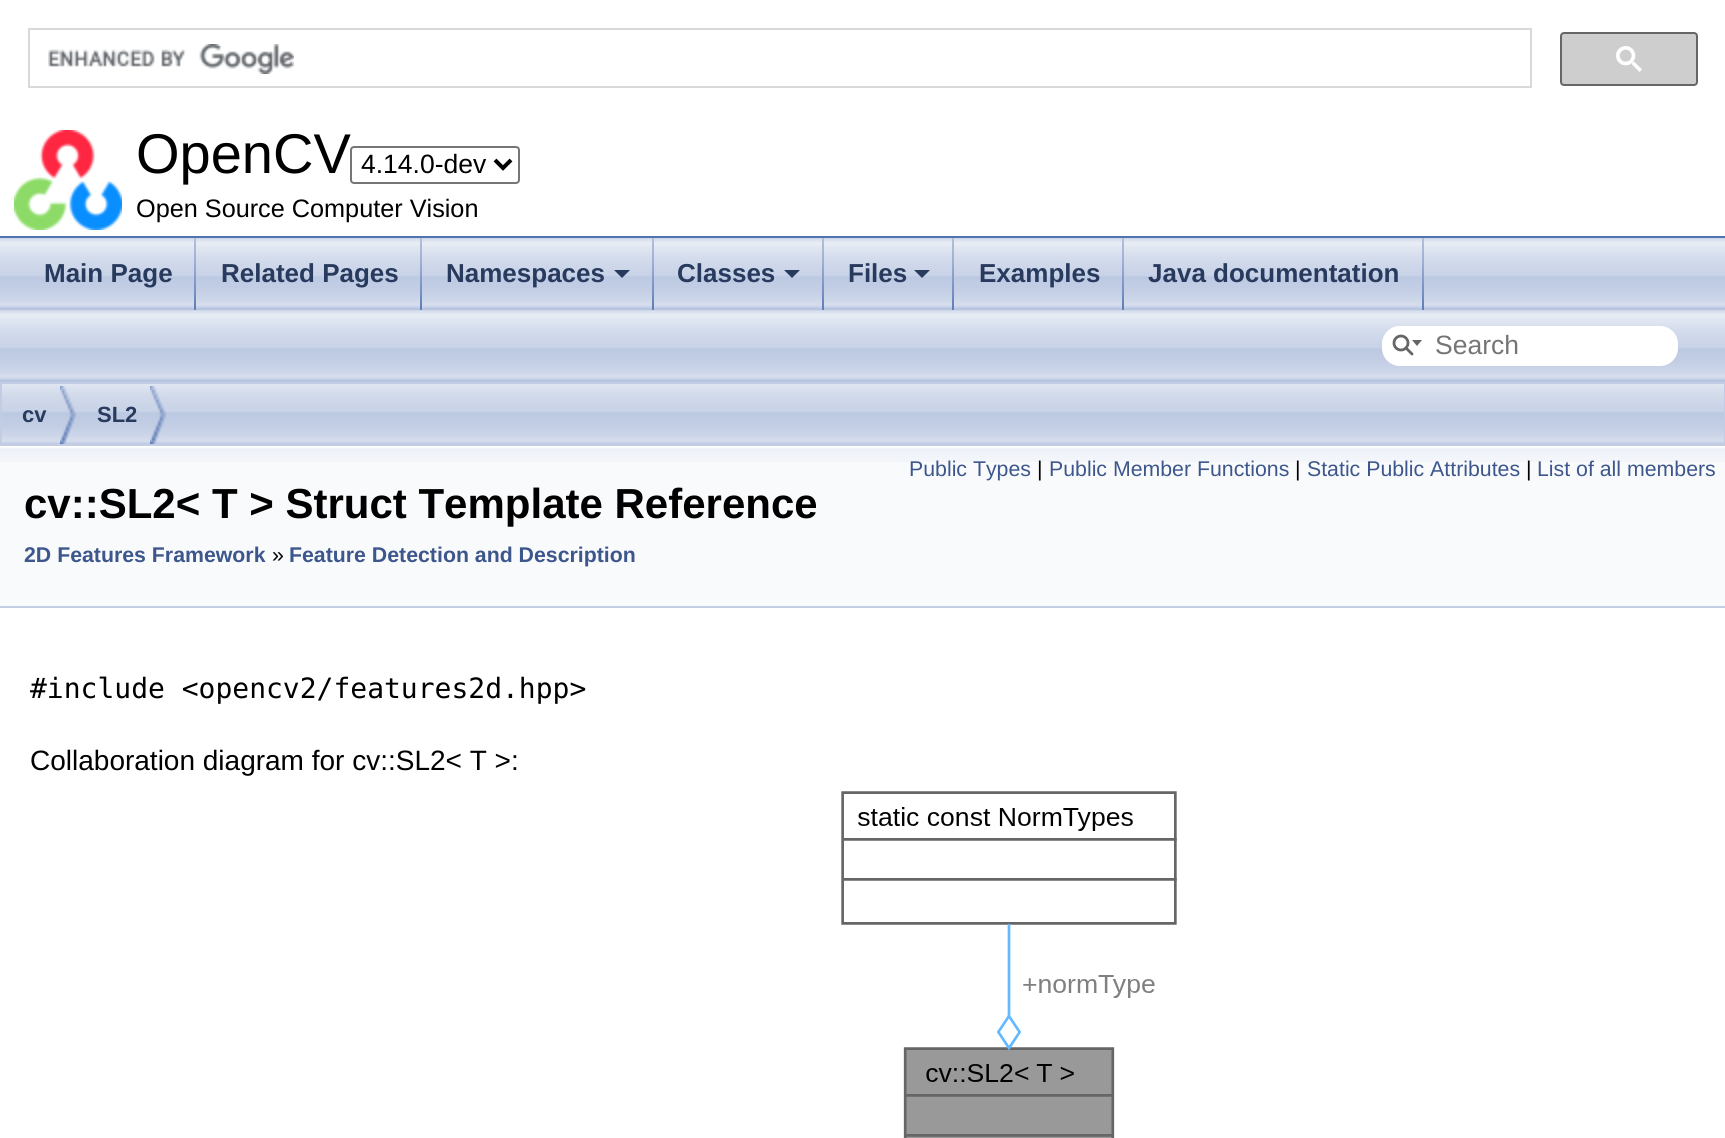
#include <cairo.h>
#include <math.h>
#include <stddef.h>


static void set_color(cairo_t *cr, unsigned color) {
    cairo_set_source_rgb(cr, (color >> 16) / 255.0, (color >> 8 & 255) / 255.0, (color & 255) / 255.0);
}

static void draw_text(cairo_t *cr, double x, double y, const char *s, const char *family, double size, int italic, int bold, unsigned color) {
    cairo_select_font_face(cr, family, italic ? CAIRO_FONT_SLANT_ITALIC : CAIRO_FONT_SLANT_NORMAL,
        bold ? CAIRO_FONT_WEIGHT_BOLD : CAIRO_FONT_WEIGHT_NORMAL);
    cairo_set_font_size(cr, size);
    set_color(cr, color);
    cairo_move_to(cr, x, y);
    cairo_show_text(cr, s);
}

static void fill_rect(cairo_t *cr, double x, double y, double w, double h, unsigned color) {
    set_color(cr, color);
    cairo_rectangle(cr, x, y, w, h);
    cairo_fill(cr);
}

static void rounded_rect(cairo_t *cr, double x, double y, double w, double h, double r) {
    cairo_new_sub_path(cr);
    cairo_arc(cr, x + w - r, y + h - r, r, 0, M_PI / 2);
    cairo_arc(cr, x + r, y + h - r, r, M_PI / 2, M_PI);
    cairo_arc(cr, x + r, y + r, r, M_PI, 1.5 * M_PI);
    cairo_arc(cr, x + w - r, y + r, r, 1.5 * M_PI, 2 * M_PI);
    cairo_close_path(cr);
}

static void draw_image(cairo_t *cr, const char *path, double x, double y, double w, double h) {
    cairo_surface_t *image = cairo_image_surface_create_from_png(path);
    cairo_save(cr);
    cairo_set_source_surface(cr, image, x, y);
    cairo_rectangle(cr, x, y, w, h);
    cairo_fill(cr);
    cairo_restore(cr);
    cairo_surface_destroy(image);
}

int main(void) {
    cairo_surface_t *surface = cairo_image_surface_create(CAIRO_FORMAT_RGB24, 1725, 1138);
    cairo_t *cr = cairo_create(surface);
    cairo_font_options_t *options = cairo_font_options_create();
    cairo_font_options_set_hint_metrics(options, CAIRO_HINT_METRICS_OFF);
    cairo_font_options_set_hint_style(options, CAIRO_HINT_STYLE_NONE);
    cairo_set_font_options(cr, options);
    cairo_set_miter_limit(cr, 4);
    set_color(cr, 0xFFFFFF);
    cairo_paint(cr);
    fill_rect(cr, 0, 236, 1725, 2, 0x5373B4);
    cairo_rectangle(cr, 29, 29, 1502, 58);
    set_color(cr, 0xD9D9D9);
    cairo_stroke(cr);
    draw_image(cr, "assets/img1.png", 48, 44, 246, 30);
    set_color(cr, 0xCECECE);
    rounded_rect(cr, 1561, 33, 136, 52, 3);
    cairo_fill_preserve(cr);
    set_color(cr, 0x666666);
    cairo_stroke(cr);
    draw_image(cr, "assets/img2.png", 1616, 46, 26, 26);
    draw_image(cr, "assets/img3.png", 14, 130, 108, 100);
    draw_text(cr, 136, 173, "OpenCV", "Liberation Sans", 56, 0, 0, 0x000000);
    rounded_rect(cr, 351, 147, 168, 36, 3);
    set_color(cr, 0x767676);
    cairo_stroke(cr);
    cairo_new_path(cr);
    cairo_move_to(cr, 495, 160);
    cairo_line_to(cr, 503, 168);
    cairo_line_to(cr, 511, 160);
    set_color(cr, 0x000000);
    cairo_set_line_width(cr, 4);
    cairo_stroke(cr);
    draw_text(cr, 361, 173, "4.14.0-dev", "Liberation Sans", 26.5, 0, 0, 0x000000);
    draw_text(cr, 136, 217, "Open Source Computer Vision", "Liberation Sans", 25.25, 0, 0, 0x000000);
    draw_image(cr, "assets/img4.png", 0, 238, 1725, 144);
    draw_image(cr, "assets/img5.png", 194, 238, 2, 72);
    draw_text(cr, 44, 282, "Main Page", "Liberation Sans", 26, 0, 1, 0x283A5D);
    draw_image(cr, "assets/img5.png", 420, 238, 2, 72);
    draw_text(cr, 221, 282, "Related Pages", "Liberation Sans", 26, 0, 1, 0x283A5D);
    draw_image(cr, "assets/img5.png", 652, 238, 2, 72);
    draw_text(cr, 446, 282, "Namespaces", "Liberation Sans", 26, 0, 1, 0x283A5D);
    cairo_new_path(cr);
    cairo_move_to(cr, 614, 270);
    cairo_line_to(cr, 630, 270);
    cairo_line_to(cr, 622, 278);
    cairo_close_path(cr);
    cairo_fill(cr);
    draw_image(cr, "assets/img5.png", 822, 238, 2, 72);
    draw_text(cr, 677, 282, "Classes", "Liberation Sans", 26, 0, 1, 0x283A5D);
    cairo_new_path(cr);
    cairo_move_to(cr, 784, 270);
    cairo_line_to(cr, 800, 270);
    cairo_line_to(cr, 792, 278);
    cairo_close_path(cr);
    cairo_fill(cr);
    draw_image(cr, "assets/img5.png", 952, 238, 2, 72);
    draw_text(cr, 848, 282, "Files", "Liberation Sans", 26, 0, 1, 0x283A5D);
    cairo_new_path(cr);
    cairo_move_to(cr, 914, 270);
    cairo_line_to(cr, 930, 270);
    cairo_line_to(cr, 922, 278);
    cairo_close_path(cr);
    cairo_fill(cr);
    draw_image(cr, "assets/img5.png", 1122, 238, 2, 72);
    draw_text(cr, 979, 282, "Examples", "Liberation Sans", 26, 0, 1, 0x283A5D);
    draw_image(cr, "assets/img5.png", 1422, 238, 2, 72);
    draw_text(cr, 1148, 282, "Java documentation", "Liberation Sans", 26, 0, 1, 0x283A5D);
    set_color(cr, 0xFFFFFF);
    rounded_rect(cr, 1382, 326, 296, 40, 18);
    cairo_fill(cr);
    cairo_arc(cr, 1401, 343, 7, 0, 2 * M_PI);
    set_color(cr, 0x656565);
    cairo_set_line_width(cr, 2.8);
    cairo_stroke(cr);
    cairo_new_path(cr);
    cairo_move_to(cr, 1412, 340);
    cairo_line_to(cr, 1417, 346);
    cairo_line_to(cr, 1422, 340);
    cairo_close_path(cr);
    cairo_fill(cr);
    cairo_new_path(cr);
    cairo_move_to(cr, 1406, 348);
    cairo_line_to(cr, 1412, 354);
    cairo_set_line_cap(cr, CAIRO_LINE_CAP_ROUND);
    cairo_stroke(cr);
    draw_text(cr, 1435, 354, "Search", "Liberation Sans", 26.5, 0, 0, 0x757575);
    draw_image(cr, "assets/img6.png", 2, 384, 1722, 60);
    cairo_rectangle(cr, 1, 383, 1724, 62);
    set_color(cr, 0xC2CDE4);
    cairo_set_line_width(cr, 2);
    cairo_set_line_cap(cr, CAIRO_LINE_CAP_BUTT);
    cairo_stroke(cr);
    draw_image(cr, "assets/img7.png", 60, 386, 16, 58);
    draw_text(cr, 22, 422, "cv", "Liberation Sans", 22, 0, 1, 0x283A5D);
    draw_image(cr, "assets/img7.png", 150, 386, 16, 58);
    draw_text(cr, 97, 422, "SL2", "Liberation Sans", 22, 0, 1, 0x283A5D);
    fill_rect(cr, 0, 462, 1725, 144, 0xF9FAFC);
    draw_image(cr, "assets/img8.png", 0, 446, 1725, 16);
    fill_rect(cr, 0, 606, 1725, 2, 0xC4CFE5);
    draw_text(cr, 909, 476, "Public Types", "Liberation Sans", 21.3, 0, 0, 0x3D578C);
    draw_text(cr, 1037, 476, "|", "Liberation Sans", 21.3, 0, 0, 0x000000);
    draw_text(cr, 1049, 476, "Public Member Functions", "Liberation Sans", 21.3, 0, 0, 0x3D578C);
    draw_text(cr, 1295, 476, "|", "Liberation Sans", 21.3, 0, 0, 0x000000);
    draw_text(cr, 1307, 476, "Static Public Attributes", "Liberation Sans", 21.3, 0, 0, 0x3D578C);
    draw_text(cr, 1526, 476, "|", "Liberation Sans", 21.3, 0, 0, 0x000000);
    draw_text(cr, 1537, 476, "List of all members", "Liberation Sans", 21.3, 0, 0, 0x3D578C);
    draw_text(cr, 24, 518, "cv::SL2< T > Struct Template Reference", "Liberation Sans", 42, 0, 1, 0x000000);
    draw_text(cr, 24, 562, "2D Features Framework", "Liberation Sans", 21.3, 0, 1, 0x3D578C);
    draw_text(cr, 272, 562, "»", "Liberation Sans", 21.3, 0, 0, 0x000000);
    draw_text(cr, 289, 562, "Feature Detection and Description", "Liberation Sans", 21.3, 0, 1, 0x3D578C);
    draw_text(cr, 30, 698, "#include <opencv2/features2d.hpp>", "DejaVu Sans Mono", 28, 0, 0, 0x000000);
    draw_text(cr, 30, 770, "Collaboration diagram for cv::SL2< T >:", "Liberation Sans", 28, 0, 0, 0x000000);
    draw_image(cr, "assets/img9.png", 841, 791, 336, 347);
    cairo_surface_write_to_png(surface, "output.png");
    cairo_font_options_destroy(options);
    cairo_destroy(cr);
    cairo_surface_destroy(surface);
    return 0;
}
